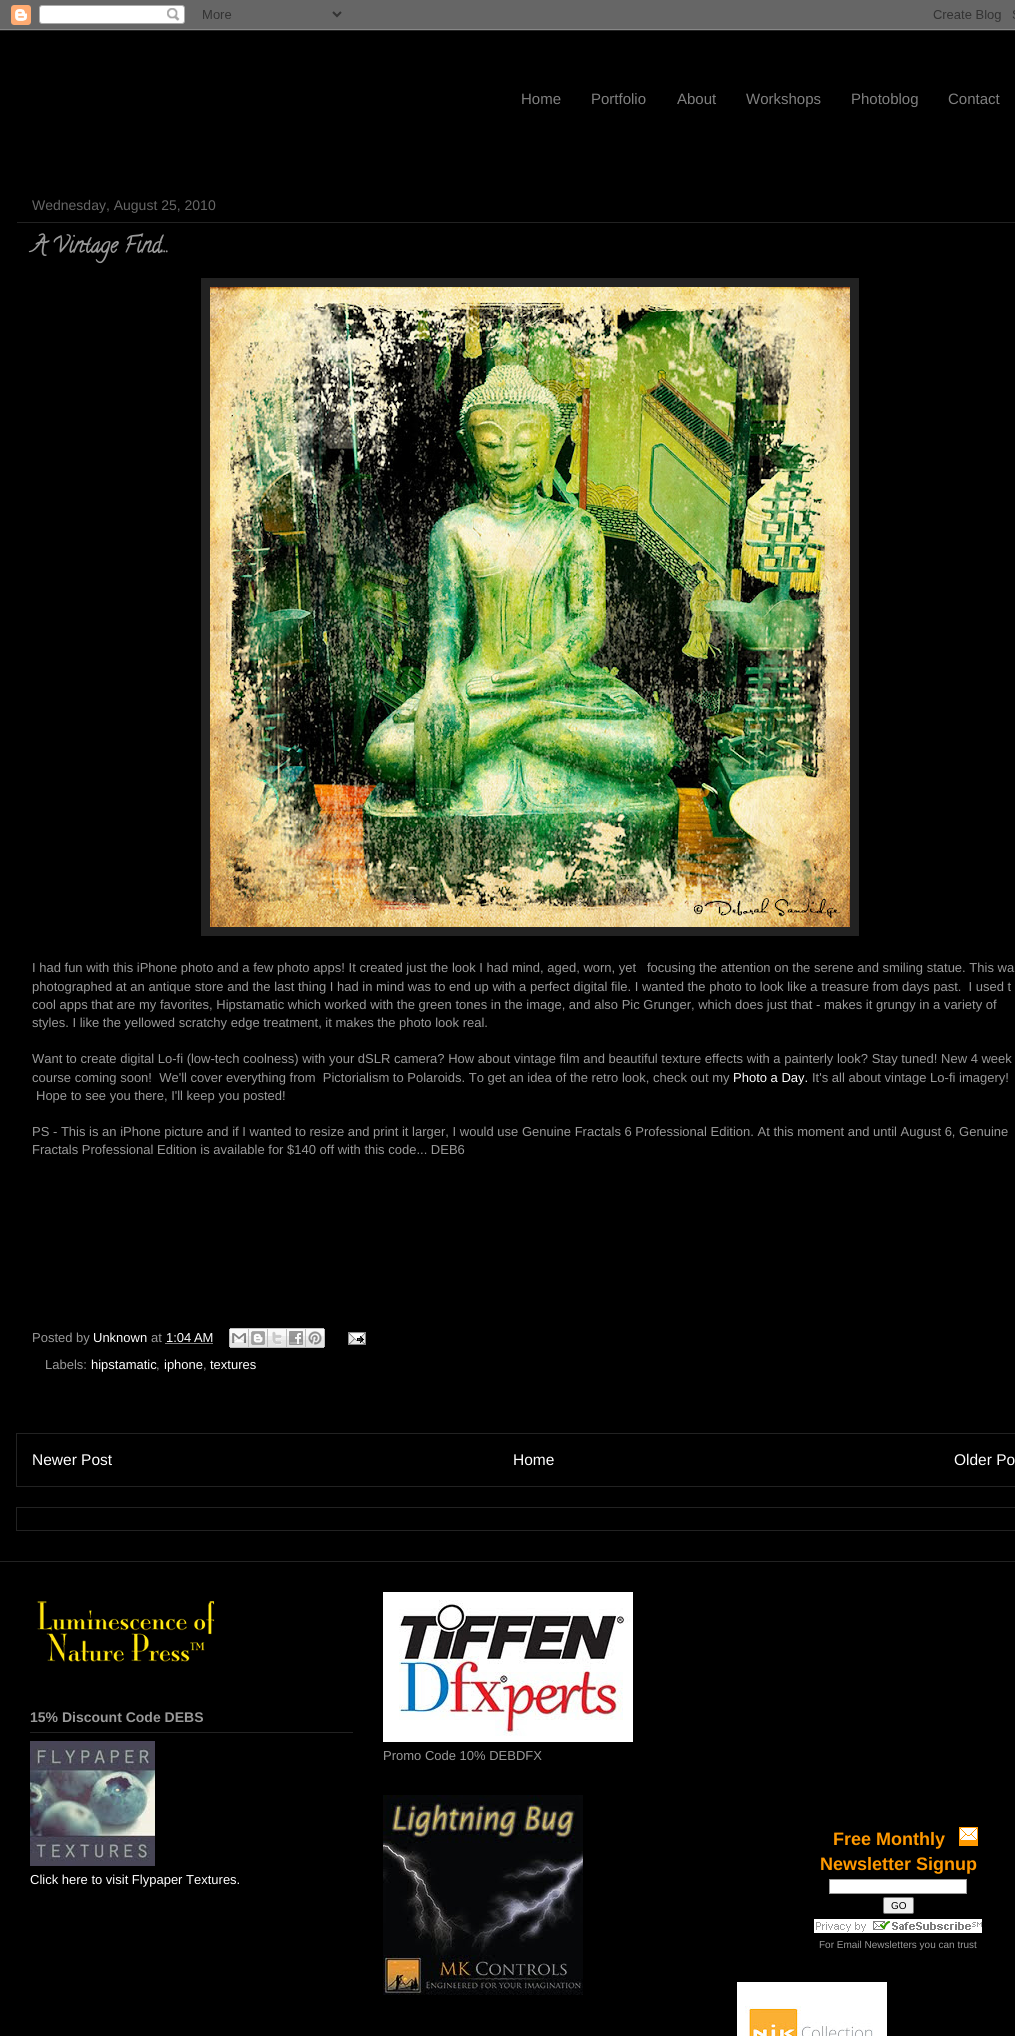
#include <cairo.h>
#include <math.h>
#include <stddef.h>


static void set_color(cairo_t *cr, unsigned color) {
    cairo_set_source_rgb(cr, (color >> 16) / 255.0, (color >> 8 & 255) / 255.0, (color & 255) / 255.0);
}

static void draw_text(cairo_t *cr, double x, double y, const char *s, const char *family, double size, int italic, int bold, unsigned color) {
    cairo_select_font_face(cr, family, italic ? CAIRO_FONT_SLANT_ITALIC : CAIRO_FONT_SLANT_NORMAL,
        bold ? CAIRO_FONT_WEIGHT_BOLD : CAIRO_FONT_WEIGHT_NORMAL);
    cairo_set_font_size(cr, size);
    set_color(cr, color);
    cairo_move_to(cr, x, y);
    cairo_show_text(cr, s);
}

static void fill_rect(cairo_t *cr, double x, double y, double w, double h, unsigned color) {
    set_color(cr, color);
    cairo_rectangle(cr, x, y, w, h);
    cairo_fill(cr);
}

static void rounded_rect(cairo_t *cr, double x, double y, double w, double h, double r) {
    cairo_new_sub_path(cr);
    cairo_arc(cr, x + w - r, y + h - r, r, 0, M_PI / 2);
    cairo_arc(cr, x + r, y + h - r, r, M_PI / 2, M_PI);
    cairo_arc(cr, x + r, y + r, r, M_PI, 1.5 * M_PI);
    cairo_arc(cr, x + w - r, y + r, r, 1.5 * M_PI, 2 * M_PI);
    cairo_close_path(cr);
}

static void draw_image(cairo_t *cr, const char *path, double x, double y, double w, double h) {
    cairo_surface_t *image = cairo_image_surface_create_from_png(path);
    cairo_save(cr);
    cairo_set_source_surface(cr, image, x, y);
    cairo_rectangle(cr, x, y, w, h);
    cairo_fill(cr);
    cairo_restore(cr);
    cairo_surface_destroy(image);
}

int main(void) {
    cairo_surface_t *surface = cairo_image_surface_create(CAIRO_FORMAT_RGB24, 1015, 2036);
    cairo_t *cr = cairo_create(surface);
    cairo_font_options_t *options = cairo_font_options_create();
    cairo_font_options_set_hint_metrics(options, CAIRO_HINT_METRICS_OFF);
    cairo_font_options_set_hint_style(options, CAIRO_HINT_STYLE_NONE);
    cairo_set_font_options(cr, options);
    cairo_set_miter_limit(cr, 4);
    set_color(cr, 0x000000);
    cairo_paint(cr);
    draw_image(cr, "assets/img1.png", 0, 0, 1015, 30);
    fill_rect(cr, 0, 30, 1015, 1, 0x222222);
    draw_text(cr, 521, 104, "Home", "Liberation Sans", 15, 0, 0, 0x808080);
    draw_text(cr, 591, 104, "Portfolio", "Liberation Sans", 15, 0, 0, 0x808080);
    draw_text(cr, 677, 104, "About", "Liberation Sans", 15, 0, 0, 0x808080);
    draw_text(cr, 746, 104, "Workshops", "Liberation Sans", 15, 0, 0, 0x808080);
    draw_text(cr, 851, 104, "Photoblog", "Liberation Sans", 15, 0, 0, 0x808080);
    draw_text(cr, 948, 104, "Contact", "Liberation Sans", 15, 0, 0, 0x808080);
    draw_text(cr, 32, 210, "Wednesday, August 25, 2010", "Liberation Sans", 14, 0, 0, 0x666666);
    fill_rect(cr, 17, 222, 998, 1, 0x222222);
    draw_text(cr, 32, 252, "A Vintage Find...", "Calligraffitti", 22, 0, 1, 0x999999);
    fill_rect(cr, 201, 278, 658, 658, 0x222222);
    draw_image(cr, "assets/img2.png", 210, 287, 640, 640);
    draw_text(cr, 32, 972, "I had fun with this iPhone photo and a few photo apps! It created just the look I had mind, aged, worn, yet   focusing the attention on the serene and smiling statue. This wa", "Liberation Sans", 13, 0, 0, 0x999999);
    draw_text(cr, 32, 991, "photographed at an antique store and the last thing I had in mind was to end up with a perfect digital file. I wanted the photo to look like a treasure from days past.  I used t", "Liberation Sans", 13, 0, 0, 0x999999);
    draw_text(cr, 32, 1009, "cool apps that are my favorites, Hipstamatic which worked with the green tones in the image, and also Pic Grunger, which does just that - makes it grungy in a variety of", "Liberation Sans", 13, 0, 0, 0x999999);
    draw_text(cr, 32, 1027, "styles. I like the yellowed scratchy edge treatment, it makes the photo look real.", "Liberation Sans", 13, 0, 0, 0x999999);
    draw_text(cr, 32, 1063, "Want to create digital Lo-fi (low-tech coolness) with your dSLR camera? How about vintage film and beautiful texture effects with a painterly look? Stay tuned! New 4 week", "Liberation Sans", 13, 0, 0, 0x999999);
    draw_text(cr, 32, 1082, "course coming soon!  We'll cover everything from  Pictorialism to Polaroids. To get an idea of the retro look, check out my", "Liberation Sans", 13, 0, 0, 0x999999);
    draw_text(cr, 733, 1082, "Photo a Day.", "Liberation Sans", 13, 0, 0, 0xFFFFFF);
    draw_text(cr, 812, 1082, "It's all about vintage Lo-fi imagery!", "Liberation Sans", 13, 0, 0, 0x999999);
    draw_text(cr, 36, 1100, "Hope to see you there, I'll keep you posted!", "Liberation Sans", 13, 0, 0, 0x999999);
    draw_text(cr, 32, 1136, "PS - This is an iPhone picture and if I wanted to resize and print it larger, I would use Genuine Fractals 6 Professional Edition. At this moment and until August 6, Genuine", "Liberation Sans", 13, 0, 0, 0x999999);
    draw_text(cr, 32, 1154, "Fractals Professional Edition is available for $140 off with this code... DEB6", "Liberation Sans", 13, 0, 0, 0x999999);
    draw_text(cr, 32, 1342, "Posted by", "Liberation Sans", 13, 0, 0, 0x999999);
    draw_text(cr, 93, 1342, "Unknown", "Liberation Sans", 13, 0, 0, 0xFFFFFF);
    draw_text(cr, 151, 1342, "at", "Liberation Sans", 13, 0, 0, 0x999999);
    draw_text(cr, 166, 1342, "1:04 AM", "Liberation Sans", 13, 0, 0, 0xFFFFFF);
    cairo_new_path(cr);
    cairo_move_to(cr, 165.5, 1343.5);
    cairo_line_to(cr, 213, 1343.5);
    cairo_set_line_width(cr, 1);
    cairo_set_dash(cr, (double[]){1, 1}, 2, 0);
    cairo_stroke(cr);
    draw_image(cr, "assets/img3.png", 229, 1328, 20, 20);
    draw_image(cr, "assets/img4.png", 249, 1328, 19, 20);
    draw_image(cr, "assets/img5.png", 268, 1328, 19, 20);
    draw_image(cr, "assets/img6.png", 287, 1328, 19, 20);
    draw_image(cr, "assets/img7.png", 306, 1328, 19, 20);
    draw_image(cr, "assets/img8.png", 348, 1332, 18, 13);
    draw_text(cr, 45, 1369, "Labels:", "Liberation Sans", 13, 0, 0, 0x999999);
    draw_text(cr, 91, 1369, "hipstamatic", "Liberation Sans", 13, 0, 0, 0xFFFFFF);
    draw_text(cr, 156, 1369, ",", "Liberation Sans", 13, 0, 0, 0x999999);
    draw_text(cr, 164, 1369, "iphone", "Liberation Sans", 13, 0, 0, 0xFFFFFF);
    draw_text(cr, 203, 1369, ",", "Liberation Sans", 13, 0, 0, 0x999999);
    draw_text(cr, 210, 1369, "textures", "Liberation Sans", 13, 0, 0, 0xFFFFFF);
    cairo_rectangle(cr, 16.5, 1433.5, 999, 53);
    set_color(cr, 0x222222);
    cairo_set_dash(cr, NULL, 0, 0);
    cairo_stroke(cr);
    draw_text(cr, 32, 1465, "Newer Post", "Liberation Sans", 15.5, 0, 0, 0xFFFFFF);
    draw_text(cr, 513, 1465, "Home", "Liberation Sans", 15.5, 0, 0, 0xFFFFFF);
    draw_text(cr, 954, 1465, "Older Po", "Liberation Sans", 15.5, 0, 0, 0xFFFFFF);
    cairo_rectangle(cr, 16.5, 1507.5, 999, 23);
    set_color(cr, 0x222222);
    cairo_stroke(cr);
    fill_rect(cr, 0, 1561, 1015, 1, 0x222222);
    draw_image(cr, "assets/img9.png", 36, 1601, 179, 61);
    draw_text(cr, 30, 1722, "15% Discount Code DEBS", "Liberation Sans", 14, 0, 1, 0x999999);
    fill_rect(cr, 30, 1732, 323, 1, 0x222222);
    draw_image(cr, "assets/img10.png", 30, 1741, 125, 125);
    draw_text(cr, 30, 1884, "Click here to visit Flypaper Textures.", "Liberation Sans", 13, 0, 0, 0xFFFFFF);
    draw_image(cr, "assets/img11.png", 383, 1592, 250, 150);
    draw_text(cr, 383, 1760, "Promo Code 10% DEBDFX", "Liberation Sans", 13, 0, 0, 0x999999);
    draw_image(cr, "assets/img12.png", 383, 1795, 200, 200);
    draw_text(cr, 833, 1845, "Free Monthly", "Liberation Sans", 18, 0, 1, 0xFF9900);
    fill_rect(cr, 959, 1827, 19, 19, 0xFF9900);
    draw_image(cr, "assets/img13.png", 960, 1828, 17, 12);
    draw_text(cr, 820, 1870, "Newsletter Signup", "Liberation Sans", 18, 0, 1, 0xFF9900);
    set_color(cr, 0xFFFFFF);
    cairo_rectangle(cr, 829.5, 1879.5, 137, 14);
    cairo_fill_preserve(cr);
    set_color(cr, 0x999999);
    cairo_stroke(cr);
    set_color(cr, 0xEFEFEF);
    rounded_rect(cr, 883.5, 1897.5, 30, 16, 1.5);
    cairo_fill_preserve(cr);
    set_color(cr, 0x767676);
    cairo_stroke(cr);
    draw_text(cr, 891, 1909, "GO", "Liberation Sans", 10, 0, 0, 0x000000);
    draw_image(cr, "assets/img14.png", 814, 1919, 168, 14);
    draw_text(cr, 819, 1948, "For Email Newsletters you can trust", "Liberation Sans", 10, 0, 0, 0x999999);
    draw_image(cr, "assets/img15.png", 737, 1982, 150, 54);
    cairo_surface_write_to_png(surface, "output.png");
    cairo_font_options_destroy(options);
    cairo_destroy(cr);
    cairo_surface_destroy(surface);
    return 0;
}
